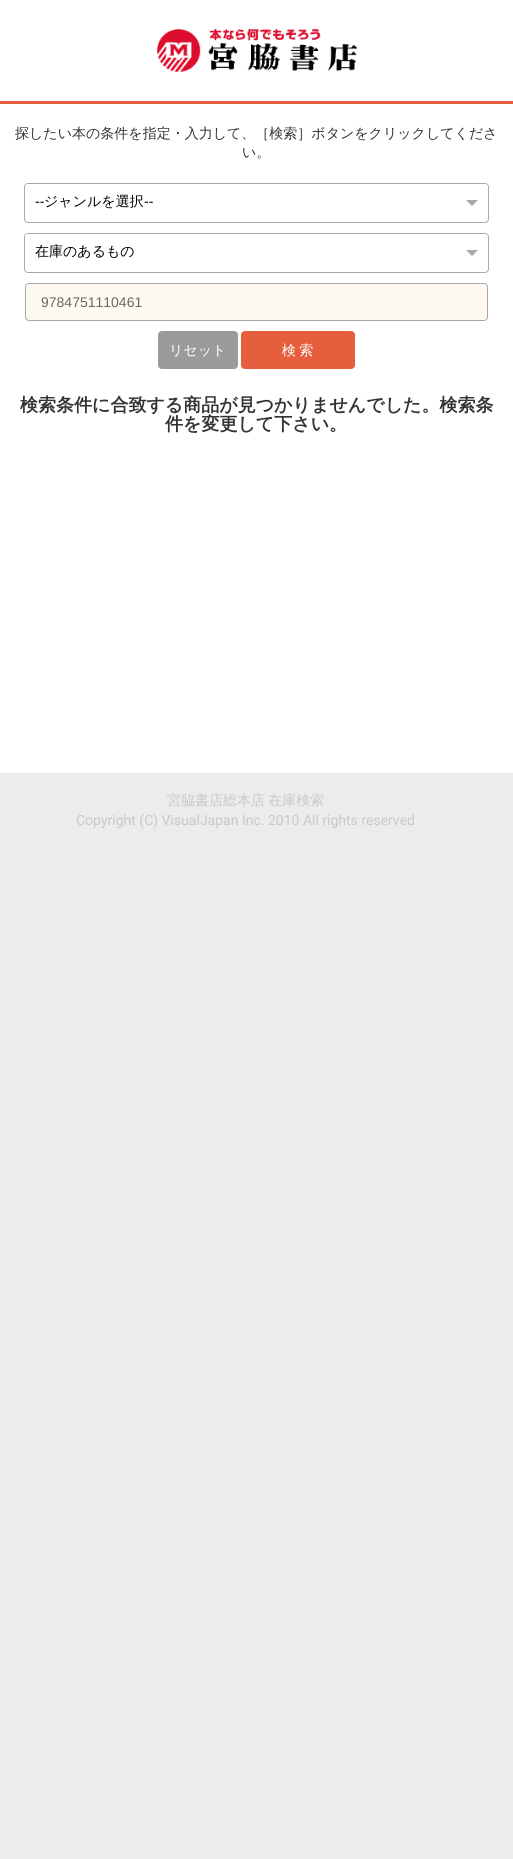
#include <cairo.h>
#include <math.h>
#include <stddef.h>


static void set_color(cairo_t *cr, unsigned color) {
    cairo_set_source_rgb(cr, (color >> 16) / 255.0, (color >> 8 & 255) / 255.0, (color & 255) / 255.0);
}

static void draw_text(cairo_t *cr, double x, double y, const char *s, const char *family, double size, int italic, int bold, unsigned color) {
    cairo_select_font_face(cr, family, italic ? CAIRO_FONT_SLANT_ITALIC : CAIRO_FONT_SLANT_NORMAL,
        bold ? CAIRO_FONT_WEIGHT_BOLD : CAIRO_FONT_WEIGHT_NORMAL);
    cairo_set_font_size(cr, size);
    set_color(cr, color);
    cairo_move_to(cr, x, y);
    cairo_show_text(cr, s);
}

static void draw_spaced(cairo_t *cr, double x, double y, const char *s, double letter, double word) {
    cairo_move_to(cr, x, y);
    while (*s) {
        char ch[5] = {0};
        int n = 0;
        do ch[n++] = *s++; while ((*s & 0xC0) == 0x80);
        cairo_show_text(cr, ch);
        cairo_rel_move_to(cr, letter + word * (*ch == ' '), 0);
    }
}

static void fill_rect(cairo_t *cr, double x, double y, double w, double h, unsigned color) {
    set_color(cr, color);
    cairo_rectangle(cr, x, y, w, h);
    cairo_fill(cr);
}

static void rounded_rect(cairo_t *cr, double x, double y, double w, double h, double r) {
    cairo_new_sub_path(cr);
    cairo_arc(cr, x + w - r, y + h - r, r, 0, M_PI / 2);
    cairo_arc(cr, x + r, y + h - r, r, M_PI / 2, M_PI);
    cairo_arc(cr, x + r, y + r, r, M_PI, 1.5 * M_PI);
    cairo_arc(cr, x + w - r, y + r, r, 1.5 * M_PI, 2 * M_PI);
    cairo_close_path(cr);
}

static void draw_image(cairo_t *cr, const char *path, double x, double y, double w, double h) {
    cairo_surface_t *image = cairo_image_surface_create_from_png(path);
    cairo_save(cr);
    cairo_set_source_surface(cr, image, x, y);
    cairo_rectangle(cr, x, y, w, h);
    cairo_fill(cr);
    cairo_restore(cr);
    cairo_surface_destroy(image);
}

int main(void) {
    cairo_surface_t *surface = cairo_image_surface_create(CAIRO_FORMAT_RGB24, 513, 1859);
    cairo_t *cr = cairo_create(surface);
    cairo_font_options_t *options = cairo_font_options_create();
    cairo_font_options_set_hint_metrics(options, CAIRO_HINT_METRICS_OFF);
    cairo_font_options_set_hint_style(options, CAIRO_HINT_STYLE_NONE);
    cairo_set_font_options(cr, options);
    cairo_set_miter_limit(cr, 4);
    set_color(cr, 0xECECEC);
    cairo_paint(cr);
    fill_rect(cr, 0, 0, 513, 101, 0xFFFFFF);
    fill_rect(cr, 0, 101, 513, 3, 0xE55F3F);
    draw_image(cr, "assets/img1.png", 157, 29, 200, 43);
    fill_rect(cr, 0, 104, 513, 669, 0xFFFFFF);
    draw_text(cr, 15, 138, "探したい本の条件を指定・入力して、［検索］ボタンをクリックしてくださ", "WenQuanYi Zen Hei Medium", 14, 0, 0, 0x333333);
    draw_text(cr, 242, 157, "い。", "WenQuanYi Zen Hei Medium", 14, 0, 0, 0x333333);
    rounded_rect(cr, 24.5, 183.5, 464, 39, 3.5);
    set_color(cr, 0xA9A9A9);
    cairo_set_line_width(cr, 1);
    cairo_stroke(cr);
    set_color(cr, 0xFFFFFF);
    cairo_new_path(cr);
    cairo_move_to(cr, 28, 184);
    cairo_line_to(cr, 485, 184);
    cairo_curve_to(cr, 486.5, 184, 488, 185.5, 488, 187);
    cairo_line_to(cr, 488, 219);
    cairo_line_to(cr, 25, 219);
    cairo_line_to(cr, 25, 187);
    cairo_curve_to(cr, 25, 185.5, 26.5, 184, 28, 184);
    cairo_close_path(cr);
    cairo_fill(cr);
    draw_text(cr, 35, 206, "--", "Liberation Sans", 14, 0, 0, 0x000000);
    draw_text(cr, 44, 206, "ジャンルを選択", "WenQuanYi Zen Hei Medium", 14, 0, 0, 0x000000);
    draw_text(cr, 144, 206, "--", "Liberation Sans", 14, 0, 0, 0x000000);
    set_color(cr, 0xA9A9A9);
    cairo_new_path(cr);
    cairo_move_to(cr, 466, 200);
    cairo_line_to(cr, 478, 200);
    cairo_line_to(cr, 472, 206);
    cairo_close_path(cr);
    cairo_fill(cr);
    rounded_rect(cr, 24.5, 233.5, 464, 39, 3.5);
    cairo_stroke(cr);
    set_color(cr, 0xFFFFFF);
    cairo_new_path(cr);
    cairo_move_to(cr, 28, 234);
    cairo_line_to(cr, 485, 234);
    cairo_curve_to(cr, 486.5, 234, 488, 235.5, 488, 237);
    cairo_line_to(cr, 488, 269);
    cairo_line_to(cr, 25, 269);
    cairo_line_to(cr, 25, 237);
    cairo_curve_to(cr, 25, 235.5, 26.5, 234, 28, 234);
    cairo_close_path(cr);
    cairo_fill(cr);
    draw_text(cr, 35, 256, "在庫のあるもの", "WenQuanYi Zen Hei Medium", 14, 0, 0, 0x000000);
    set_color(cr, 0xA9A9A9);
    cairo_new_path(cr);
    cairo_move_to(cr, 466, 250);
    cairo_line_to(cr, 478, 250);
    cairo_line_to(cr, 472, 256);
    cairo_close_path(cr);
    cairo_fill(cr);
    set_color(cr, 0xFFFAF0);
    rounded_rect(cr, 25.5, 283.5, 462, 37, 3.5);
    cairo_fill_preserve(cr);
    set_color(cr, 0xA9A9A9);
    cairo_stroke(cr);
    draw_text(cr, 41, 307, "9784751110461", "Liberation Sans", 14, 0, 0, 0x696969);
    set_color(cr, 0x9B9B9B);
    rounded_rect(cr, 158.5, 331.5, 79, 37, 3.5);
    cairo_fill_preserve(cr);
    cairo_stroke(cr);
    draw_text(cr, 169, 355, "リセット", "WenQuanYi Zen Hei Medium", 14, 0, 0, 0xFFFFFF);
    set_color(cr, 0xE55F3F);
    rounded_rect(cr, 241.5, 331.5, 113, 37, 3.5);
    cairo_fill_preserve(cr);
    cairo_stroke(cr);
    set_color(cr, 0xFFFFFF);
    draw_spaced(cr, 282, 355, "検 索", 0, -1);
    draw_text(cr, 20, 411, "検索条件に合致する商品が見つかりませんでした。検索条", "WenQuanYi Zen Hei", 18, 0, 1, 0x333333);
    draw_text(cr, 165, 430, "件を変更して下さい。", "WenQuanYi Zen Hei", 18, 0, 1, 0x333333);
    cairo_select_font_face(cr, "WenQuanYi Zen Hei Medium", CAIRO_FONT_SLANT_NORMAL, CAIRO_FONT_WEIGHT_NORMAL);
    cairo_set_font_size(cr, 14);
    set_color(cr, 0xC8C8C8);
    draw_spaced(cr, 167, 805, "宮脇書店総本店 在庫検索", 0, -1);
    draw_text(cr, 76, 825, "Copyright (C) VisualJapan Inc. 2010 All rights reserved", "Roboto", 14, 0, 0, 0xC8C8C8);
    cairo_surface_write_to_png(surface, "output.png");
    cairo_font_options_destroy(options);
    cairo_destroy(cr);
    cairo_surface_destroy(surface);
    return 0;
}
